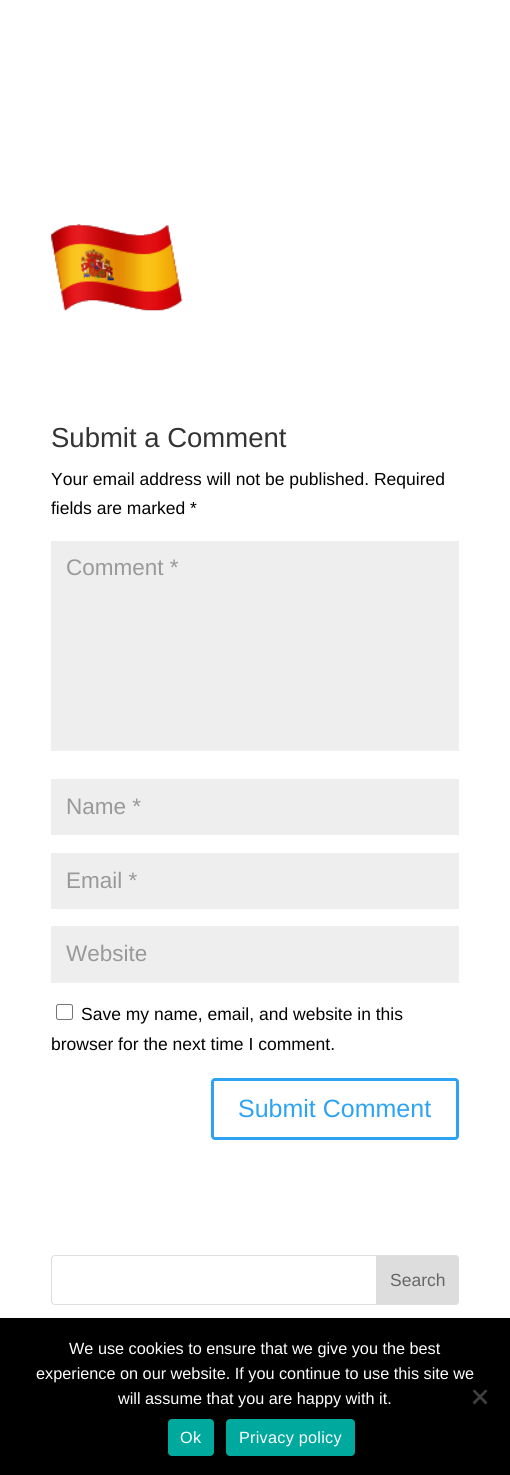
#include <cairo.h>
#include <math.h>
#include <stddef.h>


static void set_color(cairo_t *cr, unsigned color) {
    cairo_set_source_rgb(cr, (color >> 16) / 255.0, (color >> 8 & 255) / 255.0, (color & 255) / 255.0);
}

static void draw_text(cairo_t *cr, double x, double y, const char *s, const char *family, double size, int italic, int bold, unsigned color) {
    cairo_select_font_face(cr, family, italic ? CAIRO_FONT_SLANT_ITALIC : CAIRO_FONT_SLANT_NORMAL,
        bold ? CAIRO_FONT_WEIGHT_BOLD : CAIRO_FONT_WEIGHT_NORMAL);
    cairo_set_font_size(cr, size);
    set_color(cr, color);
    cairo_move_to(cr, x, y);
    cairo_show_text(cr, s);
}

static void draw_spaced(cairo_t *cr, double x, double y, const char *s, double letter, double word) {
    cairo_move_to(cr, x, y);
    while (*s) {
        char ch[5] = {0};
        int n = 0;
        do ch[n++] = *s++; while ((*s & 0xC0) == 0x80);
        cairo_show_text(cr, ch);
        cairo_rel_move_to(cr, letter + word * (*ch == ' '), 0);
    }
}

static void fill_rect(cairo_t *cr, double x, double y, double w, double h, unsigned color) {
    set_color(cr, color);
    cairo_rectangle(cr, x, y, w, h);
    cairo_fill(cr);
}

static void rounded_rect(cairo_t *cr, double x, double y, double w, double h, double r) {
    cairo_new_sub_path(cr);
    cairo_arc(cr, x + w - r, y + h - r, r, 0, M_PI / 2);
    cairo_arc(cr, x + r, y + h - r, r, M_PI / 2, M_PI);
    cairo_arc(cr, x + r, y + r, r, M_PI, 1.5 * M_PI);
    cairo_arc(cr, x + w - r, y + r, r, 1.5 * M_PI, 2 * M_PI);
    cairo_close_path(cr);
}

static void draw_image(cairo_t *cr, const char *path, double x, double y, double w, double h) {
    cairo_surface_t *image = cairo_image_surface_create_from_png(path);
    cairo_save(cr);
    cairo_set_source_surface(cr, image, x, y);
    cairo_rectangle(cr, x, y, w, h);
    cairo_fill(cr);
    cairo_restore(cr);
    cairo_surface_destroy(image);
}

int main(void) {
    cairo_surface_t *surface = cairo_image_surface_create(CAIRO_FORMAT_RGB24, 510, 1475);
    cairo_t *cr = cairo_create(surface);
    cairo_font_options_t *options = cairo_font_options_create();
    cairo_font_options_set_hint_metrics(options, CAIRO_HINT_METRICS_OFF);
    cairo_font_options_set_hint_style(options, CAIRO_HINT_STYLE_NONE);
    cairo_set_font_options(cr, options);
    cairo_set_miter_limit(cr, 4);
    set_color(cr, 0xFFFFFF);
    cairo_paint(cr);
    draw_image(cr, "assets/img1.png", 51, 224, 132, 87);
    draw_text(cr, 51, 447, "Submit a Comment", "Liberation Sans", 27.5, 0, 0, 0x333333);
    draw_text(cr, 51, 485, "Your email address will not be published. Required", "Liberation Sans", 17.5, 0, 0, 0x020202);
    draw_text(cr, 51, 514, "fields are marked *", "Liberation Sans", 17.5, 0, 0, 0x020202);
    fill_rect(cr, 51, 541, 408, 210, 0xEEEEEE);
    draw_text(cr, 66, 575, "Comment *", "Liberation Sans", 22.5, 0, 0, 0x999999);
    fill_rect(cr, 51, 779, 408, 56, 0xEEEEEE);
    draw_text(cr, 66, 814, "Name *", "Liberation Sans", 22.5, 0, 0, 0x999999);
    fill_rect(cr, 51, 853, 408, 56, 0xEEEEEE);
    draw_text(cr, 66, 888, "Email *", "Liberation Sans", 22.5, 0, 0, 0x999999);
    fill_rect(cr, 51, 926, 408, 57, 0xEEEEEE);
    draw_text(cr, 66, 961, "Website", "Liberation Sans", 22.5, 0, 0, 0x999999);
    rounded_rect(cr, 56.5, 1004.5, 16, 15, 2);
    set_color(cr, 0x767676);
    cairo_set_line_width(cr, 1);
    cairo_stroke(cr);
    draw_text(cr, 81, 1020, "Save my name, email, and website in this", "Liberation Sans", 17.5, 0, 0, 0x020202);
    draw_text(cr, 51, 1050, "browser for the next time I comment.", "Liberation Sans", 17.5, 0, 0, 0x020202);
    rounded_rect(cr, 212.5, 1079.5, 245, 59, 2.5);
    set_color(cr, 0x2EA3F2);
    cairo_set_line_width(cr, 3);
    cairo_stroke(cr);
    draw_text(cr, 238, 1117, "Submit Comment", "Liberation Sans", 25, 0, 0, 0x2EA3F2);
    rounded_rect(cr, 51.5, 1255.5, 407, 49, 3.5);
    set_color(cr, 0xDDDDDD);
    cairo_set_line_width(cr, 1);
    cairo_stroke(cr);
    cairo_new_path(cr);
    cairo_move_to(cr, 376.5, 1255.5);
    cairo_line_to(cr, 455, 1255.5);
    cairo_curve_to(cr, 457, 1255.5, 458.5, 1257, 458.5, 1259);
    cairo_line_to(cr, 458.5, 1301);
    cairo_curve_to(cr, 458.5, 1303, 457, 1304.5, 455, 1304.5);
    cairo_line_to(cr, 376.5, 1304.5);
    cairo_close_path(cr);
    cairo_fill_preserve(cr);
    cairo_stroke(cr);
    draw_text(cr, 390, 1286, "Search", "Liberation Sans", 17.5, 0, 0, 0x666666);
    fill_rect(cr, 0, 1318, 510, 157, 0x000000);
    draw_text(cr, 69, 1354, "We use cookies to ensure that we give you the best", "Liberation Sans", 16.25, 0, 0, 0xFFFFFF);
    draw_text(cr, 36, 1379, "experience on our website. If you continue to use this site we", "Liberation Sans", 16.25, 0, 0, 0xFFFFFF);
    draw_text(cr, 118, 1404, "will assume that you are happy with it.", "Liberation Sans", 16.25, 0, 0, 0xFFFFFF);
    set_color(cr, 0x404040);
    cairo_new_path(cr);
    cairo_move_to(cr, 485.5, 1389.5);
    cairo_line_to(cr, 487.5, 1391);
    cairo_line_to(cr, 474.5, 1404.5);
    cairo_line_to(cr, 472.5, 1402.5);
    cairo_close_path(cr);
    cairo_fill(cr);
    cairo_new_path(cr);
    cairo_move_to(cr, 472.5, 1391);
    cairo_line_to(cr, 474.5, 1389.5);
    cairo_line_to(cr, 487.5, 1402.5);
    cairo_line_to(cr, 485.5, 1404.5);
    cairo_close_path(cr);
    cairo_fill(cr);
    set_color(cr, 0x00A99D);
    rounded_rect(cr, 168, 1419, 46, 37, 4);
    cairo_fill(cr);
    set_color(cr, 0xFFFFFF);
    draw_spaced(cr, 180, 1443, "Ok", 0.25, 0);
    set_color(cr, 0x00A99D);
    rounded_rect(cr, 226, 1419, 129, 37, 4);
    cairo_fill(cr);
    set_color(cr, 0xFFFFFF);
    draw_spaced(cr, 239, 1443, "Privacy policy", 0.25, 0);
    cairo_surface_write_to_png(surface, "output.png");
    cairo_font_options_destroy(options);
    cairo_destroy(cr);
    cairo_surface_destroy(surface);
    return 0;
}
